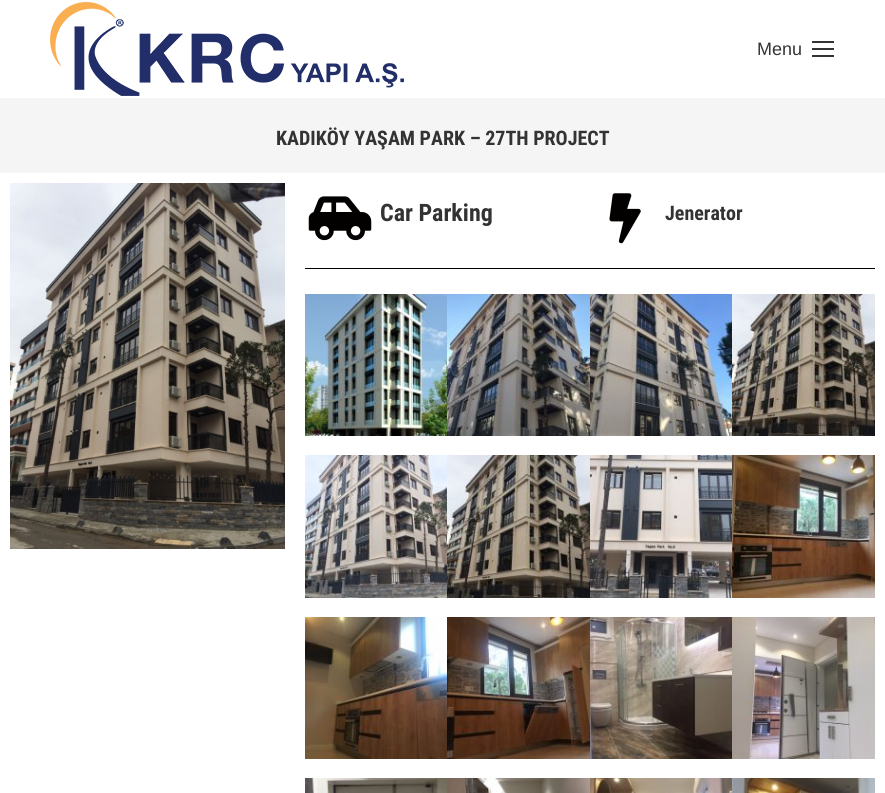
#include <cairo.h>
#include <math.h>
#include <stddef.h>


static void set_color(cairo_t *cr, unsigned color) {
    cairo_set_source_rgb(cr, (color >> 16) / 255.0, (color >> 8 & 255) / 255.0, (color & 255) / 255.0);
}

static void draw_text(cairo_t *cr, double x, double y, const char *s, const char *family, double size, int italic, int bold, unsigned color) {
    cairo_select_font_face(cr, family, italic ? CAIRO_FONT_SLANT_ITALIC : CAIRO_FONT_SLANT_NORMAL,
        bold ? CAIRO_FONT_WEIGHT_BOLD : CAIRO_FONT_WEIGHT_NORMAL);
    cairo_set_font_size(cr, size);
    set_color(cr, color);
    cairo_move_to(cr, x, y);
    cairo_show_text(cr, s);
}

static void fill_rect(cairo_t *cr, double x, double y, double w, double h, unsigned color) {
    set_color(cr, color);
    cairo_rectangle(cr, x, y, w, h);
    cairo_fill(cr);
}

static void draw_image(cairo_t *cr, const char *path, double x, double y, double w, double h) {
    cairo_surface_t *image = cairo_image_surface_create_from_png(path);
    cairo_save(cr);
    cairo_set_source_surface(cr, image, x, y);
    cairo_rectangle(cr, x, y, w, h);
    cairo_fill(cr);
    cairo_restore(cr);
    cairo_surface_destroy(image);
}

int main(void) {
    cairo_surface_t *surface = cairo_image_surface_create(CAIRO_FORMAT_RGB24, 885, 793);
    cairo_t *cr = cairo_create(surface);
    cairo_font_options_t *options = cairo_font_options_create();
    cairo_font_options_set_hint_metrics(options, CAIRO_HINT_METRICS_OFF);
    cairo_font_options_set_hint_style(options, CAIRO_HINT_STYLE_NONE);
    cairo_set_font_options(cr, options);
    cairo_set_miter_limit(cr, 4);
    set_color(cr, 0xFFFFFF);
    cairo_paint(cr);
    draw_image(cr, "assets/img1.png", 50, 2, 354, 94);
    draw_text(cr, 757, 55, "Menu", "Liberation Sans", 18, 0, 0, 0x333333);
    fill_rect(cr, 812, 41, 22, 2, 0x333333);
    fill_rect(cr, 812, 48, 22, 2, 0x333333);
    fill_rect(cr, 812, 55, 22, 2, 0x333333);
    fill_rect(cr, 0, 98, 885, 75, 0xF5F5F5);
    draw_text(cr, 276, 145, "KADIKÖY YAŞAM PARK – 27TH PROJECT", "Roboto Condensed", 20, 0, 1, 0x333333);
    draw_image(cr, "assets/img2.png", 10, 183, 275, 366);
    draw_image(cr, "assets/img3.png", 308, 196, 64, 45);
    draw_text(cr, 380, 221, "Car Parking", "Roboto Condensed", 24, 0, 1, 0x333333);
    draw_image(cr, "assets/img4.png", 609, 193, 32, 51);
    draw_text(cr, 665, 220, "Jenerator", "Roboto Condensed", 20, 0, 1, 0x333333);
    fill_rect(cr, 305, 268, 570, 1, 0x000000);
    draw_image(cr, "assets/img5.png", 305, 294, 142, 142);
    draw_image(cr, "assets/img6.png", 447, 294, 143, 142);
    draw_image(cr, "assets/img7.png", 590, 294, 142, 142);
    draw_image(cr, "assets/img8.png", 732, 294, 143, 142);
    draw_image(cr, "assets/img9.png", 305, 455, 142, 143);
    draw_image(cr, "assets/img10.png", 447, 455, 143, 143);
    draw_image(cr, "assets/img11.png", 590, 455, 142, 143);
    draw_image(cr, "assets/img12.png", 732, 455, 143, 143);
    draw_image(cr, "assets/img13.png", 305, 617, 142, 142);
    draw_image(cr, "assets/img14.png", 447, 617, 143, 142);
    draw_image(cr, "assets/img15.png", 590, 617, 142, 142);
    draw_image(cr, "assets/img16.png", 732, 617, 143, 142);
    draw_image(cr, "assets/img17.png", 305, 778, 142, 15);
    draw_image(cr, "assets/img18.png", 447, 778, 143, 15);
    draw_image(cr, "assets/img19.png", 590, 778, 142, 15);
    draw_image(cr, "assets/img20.png", 732, 778, 143, 15);
    cairo_surface_write_to_png(surface, "output.png");
    cairo_font_options_destroy(options);
    cairo_destroy(cr);
    cairo_surface_destroy(surface);
    return 0;
}
